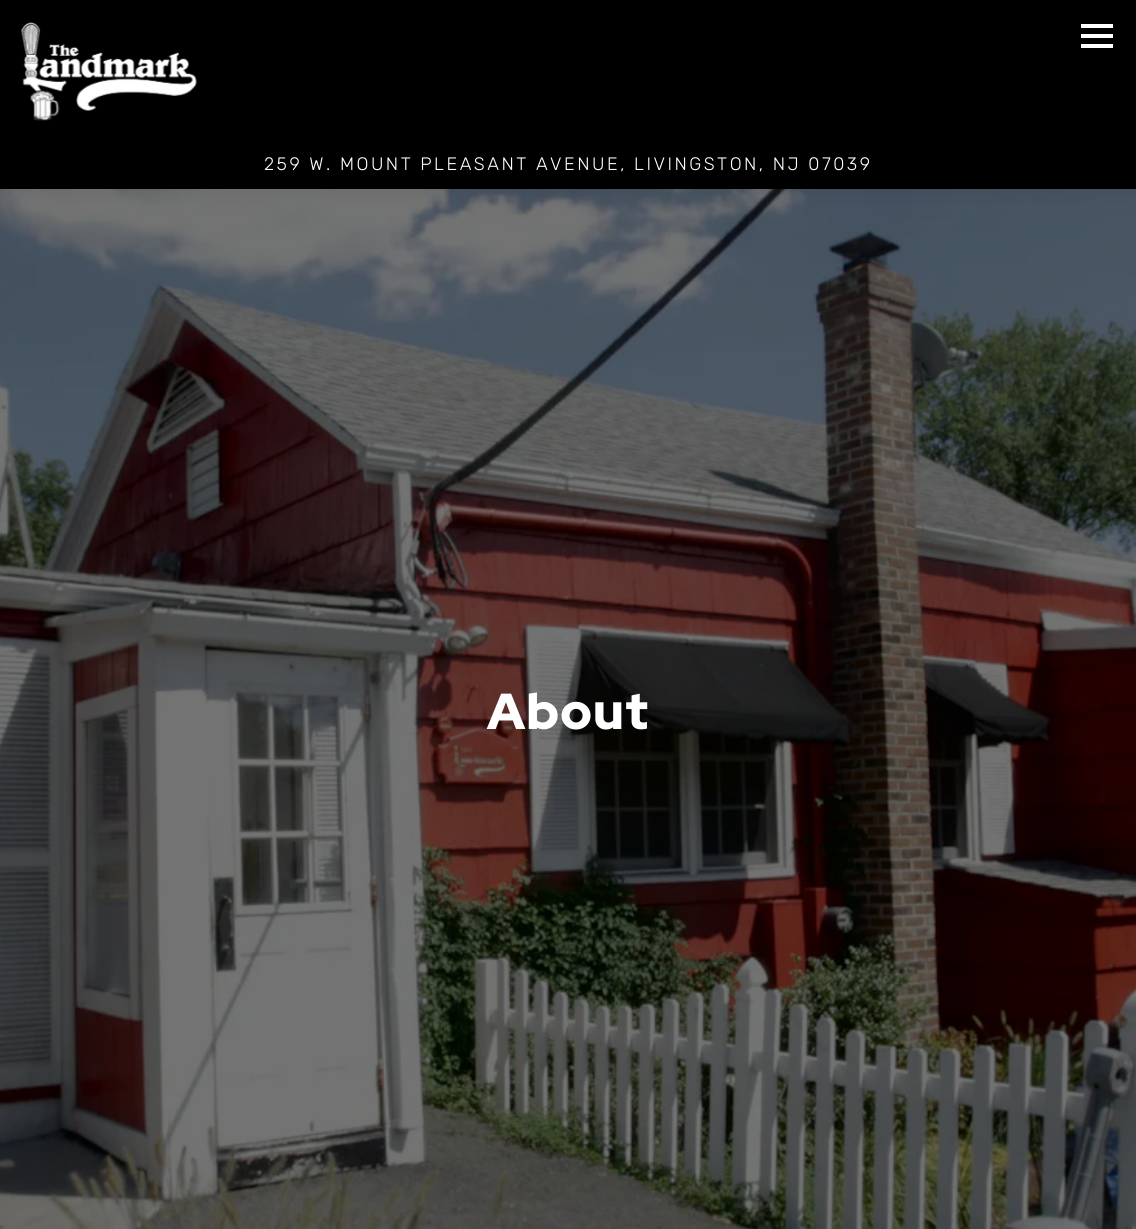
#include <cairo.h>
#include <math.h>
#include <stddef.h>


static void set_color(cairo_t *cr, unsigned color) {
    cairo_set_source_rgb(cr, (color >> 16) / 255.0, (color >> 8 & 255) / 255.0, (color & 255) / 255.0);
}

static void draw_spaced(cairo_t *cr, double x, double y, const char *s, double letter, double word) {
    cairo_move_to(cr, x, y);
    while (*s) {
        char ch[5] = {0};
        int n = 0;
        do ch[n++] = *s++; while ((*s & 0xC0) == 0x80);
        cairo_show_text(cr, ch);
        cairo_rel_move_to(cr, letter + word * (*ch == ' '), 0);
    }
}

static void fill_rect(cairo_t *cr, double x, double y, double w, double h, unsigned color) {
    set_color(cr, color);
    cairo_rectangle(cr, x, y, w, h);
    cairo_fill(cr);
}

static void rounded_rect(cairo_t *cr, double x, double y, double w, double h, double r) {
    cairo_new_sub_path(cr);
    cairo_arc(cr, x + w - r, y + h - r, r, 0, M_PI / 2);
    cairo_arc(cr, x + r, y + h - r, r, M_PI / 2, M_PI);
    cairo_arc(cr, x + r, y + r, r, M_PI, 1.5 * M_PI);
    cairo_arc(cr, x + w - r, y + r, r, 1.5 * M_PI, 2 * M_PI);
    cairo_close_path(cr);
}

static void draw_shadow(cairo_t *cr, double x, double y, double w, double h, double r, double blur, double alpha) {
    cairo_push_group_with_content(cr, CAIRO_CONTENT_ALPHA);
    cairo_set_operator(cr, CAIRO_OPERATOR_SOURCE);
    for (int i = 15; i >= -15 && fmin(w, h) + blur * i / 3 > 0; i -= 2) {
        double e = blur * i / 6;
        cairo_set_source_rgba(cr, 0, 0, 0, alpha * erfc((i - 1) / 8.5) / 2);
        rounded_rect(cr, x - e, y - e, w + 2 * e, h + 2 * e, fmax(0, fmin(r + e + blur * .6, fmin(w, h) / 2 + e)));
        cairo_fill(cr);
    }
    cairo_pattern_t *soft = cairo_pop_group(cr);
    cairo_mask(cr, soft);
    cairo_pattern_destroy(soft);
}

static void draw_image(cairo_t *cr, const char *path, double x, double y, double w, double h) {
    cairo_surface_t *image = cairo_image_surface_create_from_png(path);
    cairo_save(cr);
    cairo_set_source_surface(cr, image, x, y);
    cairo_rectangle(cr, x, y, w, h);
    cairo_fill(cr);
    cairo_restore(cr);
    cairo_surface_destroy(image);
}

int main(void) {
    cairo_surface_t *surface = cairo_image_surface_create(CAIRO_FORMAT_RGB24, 1136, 1229);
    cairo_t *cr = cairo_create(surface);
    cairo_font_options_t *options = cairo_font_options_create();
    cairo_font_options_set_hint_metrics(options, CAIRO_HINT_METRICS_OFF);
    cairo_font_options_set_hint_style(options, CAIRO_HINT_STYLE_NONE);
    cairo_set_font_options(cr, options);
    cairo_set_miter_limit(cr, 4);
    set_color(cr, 0xFFFFFF);
    cairo_paint(cr);
    draw_image(cr, "assets/img2.png", 0, 189, 1136, 1040);
    set_color(cr, 0x000000);
    draw_shadow(cr, 0, 0, 1136, 189, 0, 9.5, 0.1);
    fill_rect(cr, 0, 0, 1136, 189, 0x000000);
    draw_image(cr, "assets/img1.png", 21, 22, 176, 99);
    fill_rect(cr, 1081, 24, 32, 4, 0xFFFFFF);
    fill_rect(cr, 1081, 34, 32, 4, 0xFFFFFF);
    fill_rect(cr, 1081, 44, 32, 4, 0xFFFFFF);
    cairo_select_font_face(cr, "Rubik Light", CAIRO_FONT_SLANT_NORMAL, CAIRO_FONT_WEIGHT_NORMAL);
    cairo_set_font_size(cr, 18);
    draw_spaced(cr, 264, 170, "259 W. MOUNT PLEASANT AVENUE, LIVINGSTON, NJ 07039", 2.5, 0);
    cairo_select_font_face(cr, "Red Hat Display Black", CAIRO_FONT_SLANT_NORMAL, CAIRO_FONT_WEIGHT_NORMAL);
    cairo_set_font_size(cr, 50.5);
    draw_spaced(cr, 487, 729, "About", 1.25, 0);
    cairo_surface_write_to_png(surface, "output.png");
    cairo_font_options_destroy(options);
    cairo_destroy(cr);
    cairo_surface_destroy(surface);
    return 0;
}
